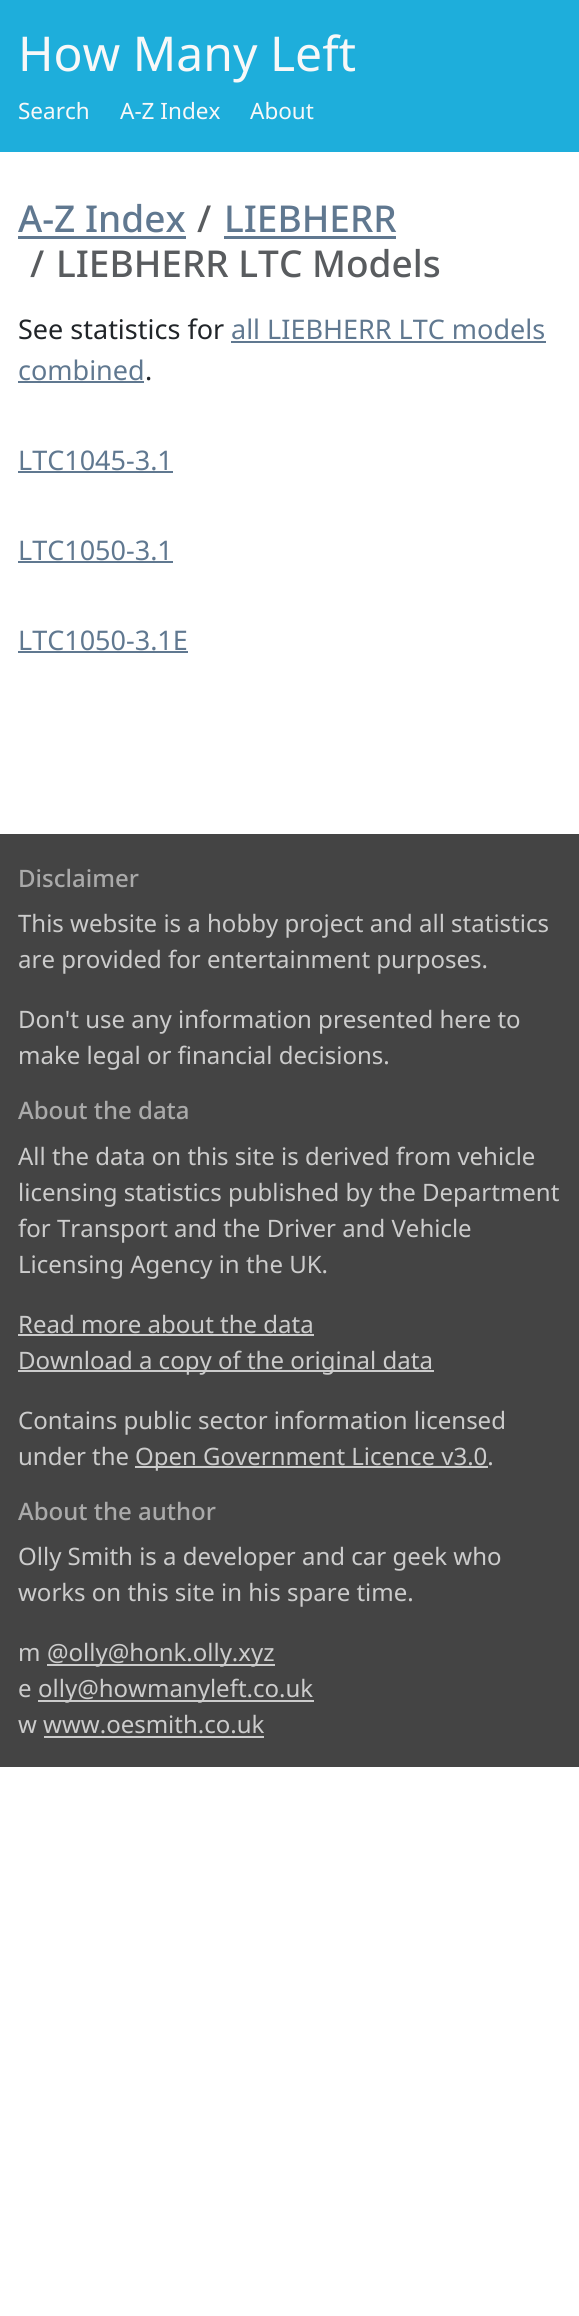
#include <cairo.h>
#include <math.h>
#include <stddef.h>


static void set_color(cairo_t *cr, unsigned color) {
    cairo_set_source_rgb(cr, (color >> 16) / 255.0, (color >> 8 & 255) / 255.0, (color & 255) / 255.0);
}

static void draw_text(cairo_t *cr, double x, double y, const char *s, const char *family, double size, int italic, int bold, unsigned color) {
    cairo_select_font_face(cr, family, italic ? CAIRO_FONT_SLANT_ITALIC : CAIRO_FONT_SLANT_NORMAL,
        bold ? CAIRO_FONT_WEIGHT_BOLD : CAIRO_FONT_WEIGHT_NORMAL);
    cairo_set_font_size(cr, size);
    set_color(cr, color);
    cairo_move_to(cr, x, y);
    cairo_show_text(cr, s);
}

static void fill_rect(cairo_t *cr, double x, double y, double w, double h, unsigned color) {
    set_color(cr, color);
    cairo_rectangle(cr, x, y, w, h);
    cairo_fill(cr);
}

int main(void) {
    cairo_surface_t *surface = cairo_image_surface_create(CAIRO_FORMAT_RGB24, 579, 2316);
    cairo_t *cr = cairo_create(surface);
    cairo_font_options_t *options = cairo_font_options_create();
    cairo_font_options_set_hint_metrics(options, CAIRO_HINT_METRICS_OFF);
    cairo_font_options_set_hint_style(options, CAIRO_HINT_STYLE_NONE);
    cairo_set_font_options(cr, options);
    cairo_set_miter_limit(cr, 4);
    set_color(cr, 0xFFFFFF);
    cairo_paint(cr);
    fill_rect(cr, 0, 0, 579, 152, 0x1EAEDB);
    draw_text(cr, 18, 71, "How Many Left", "Noto Sans", 48, 0, 0, 0xF8F8F8);
    draw_text(cr, 18, 119, "Search", "Noto Sans", 22.5, 0, 0, 0xF8F8F8);
    draw_text(cr, 120, 119, "A-Z Index", "Noto Sans", 22.5, 0, 0, 0xF8F8F8);
    draw_text(cr, 250, 119, "About", "Noto Sans", 22.5, 0, 0, 0xF8F8F8);
    draw_text(cr, 18, 232, "A-Z Index", "Noto Sans Medium", 37, 0, 0, 0x607890);
    fill_rect(cr, 18, 236, 168, 3, 0x607890);
    draw_text(cr, 197, 232, "/", "Noto Sans Medium", 37, 0, 0, 0x595C5F);
    draw_text(cr, 224, 232, "LIEBHERR", "Noto Sans Medium", 37, 0, 0, 0x607890);
    fill_rect(cr, 224, 236, 172, 3, 0x607890);
    draw_text(cr, 30, 277, "/", "Noto Sans Medium", 37, 0, 0, 0x595C5F);
    draw_text(cr, 56, 277, "LIEBHERR LTC Models", "Noto Sans Medium", 37, 0, 0, 0x595C5F);
    draw_text(cr, 18, 339, "See statistics for", "Noto Sans", 27, 0, 0, 0x212529);
    draw_text(cr, 231, 339, "all LIEBHERR LTC models", "Noto Sans", 27, 0, 0, 0x607890);
    fill_rect(cr, 231, 341, 315, 2, 0x607890);
    draw_text(cr, 18, 380, "combined", "Noto Sans", 27, 0, 0, 0x607890);
    fill_rect(cr, 18, 381, 126, 2, 0x607890);
    draw_text(cr, 145, 380, ".", "Noto Sans", 27, 0, 0, 0x212529);
    draw_text(cr, 18, 470, "LTC1045-3.1", "Noto Sans", 27, 0, 0, 0x607890);
    fill_rect(cr, 18, 471, 155, 2, 0x607890);
    draw_text(cr, 18, 560, "LTC1050-3.1", "Noto Sans", 27, 0, 0, 0x607890);
    fill_rect(cr, 18, 561, 155, 2, 0x607890);
    draw_text(cr, 18, 650, "LTC1050-3.1E", "Noto Sans", 27, 0, 0, 0x607890);
    fill_rect(cr, 18, 651, 170, 2, 0x607890);
    fill_rect(cr, 0, 834, 579, 933, 0x444444);
    draw_text(cr, 18, 887, "Disclaimer", "Noto Sans Medium", 24, 0, 0, 0xAAAAAA);
    draw_text(cr, 18, 932, "This website is a hobby project and all statistics", "Noto Sans", 24, 0, 0, 0xCCCCCC);
    draw_text(cr, 18, 968, "are provided for entertainment purposes.", "Noto Sans", 24, 0, 0, 0xCCCCCC);
    draw_text(cr, 18, 1028, "Don't use any information presented here to", "Noto Sans", 24, 0, 0, 0xCCCCCC);
    draw_text(cr, 18, 1064, "make legal or financial decisions.", "Noto Sans", 24, 0, 0, 0xCCCCCC);
    draw_text(cr, 18, 1119, "About the data", "Noto Sans Medium", 24, 0, 0, 0xAAAAAA);
    draw_text(cr, 18, 1165, "All the data on this site is derived from vehicle", "Noto Sans", 24, 0, 0, 0xCCCCCC);
    draw_text(cr, 18, 1201, "licensing statistics published by the Department", "Noto Sans", 24, 0, 0, 0xCCCCCC);
    draw_text(cr, 18, 1237, "for Transport and the Driver and Vehicle", "Noto Sans", 24, 0, 0, 0xCCCCCC);
    draw_text(cr, 18, 1273, "Licensing Agency in the UK.", "Noto Sans", 24, 0, 0, 0xCCCCCC);
    draw_text(cr, 18, 1333, "Read more about the data", "Noto Sans", 24, 0, 0, 0xCCCCCC);
    fill_rect(cr, 18, 1334, 296, 2, 0xCCCCCC);
    fill_rect(cr, 18, 1370, 416, 2, 0xCCCCCC);
    draw_text(cr, 18, 1369, "Download a copy of the original data", "Noto Sans", 24, 0, 0, 0xCCCCCC);
    draw_text(cr, 18, 1429, "Contains public sector information licensed", "Noto Sans", 24, 0, 0, 0xCCCCCC);
    draw_text(cr, 18, 1465, "under the", "Noto Sans", 24, 0, 0, 0xCCCCCC);
    fill_rect(cr, 135, 1466, 353, 2, 0xCCCCCC);
    draw_text(cr, 135, 1465, "Open Government Licence v3.0.", "Noto Sans", 24, 0, 0, 0xCCCCCC);
    draw_text(cr, 18, 1520, "About the author", "Noto Sans Medium", 24, 0, 0, 0xAAAAAA);
    draw_text(cr, 18, 1565, "Olly Smith is a developer and car geek who", "Noto Sans", 24, 0, 0, 0xCCCCCC);
    draw_text(cr, 18, 1601, "works on this site in his spare time.", "Noto Sans", 24, 0, 0, 0xCCCCCC);
    draw_text(cr, 18, 1661, "m", "Noto Sans", 24, 0, 0, 0xCCCCCC);
    fill_rect(cr, 47, 1664, 228, 2, 0xCCCCCC);
    draw_text(cr, 47, 1661, "@olly@honk.olly.xyz", "Noto Sans", 24, 0, 0, 0xCCCCCC);
    draw_text(cr, 18, 1697, "e", "Noto Sans", 24, 0, 0, 0xCCCCCC);
    fill_rect(cr, 38, 1700, 276, 2, 0xCCCCCC);
    draw_text(cr, 38, 1697, "olly@howmanyleft.co.uk", "Noto Sans", 24, 0, 0, 0xCCCCCC);
    draw_text(cr, 18, 1733, "w www.oesmith.co.uk", "Noto Sans", 24, 0, 0, 0xCCCCCC);
    fill_rect(cr, 44, 1736, 220, 2, 0xCCCCCC);
    cairo_surface_write_to_png(surface, "output.png");
    cairo_font_options_destroy(options);
    cairo_destroy(cr);
    cairo_surface_destroy(surface);
    return 0;
}
